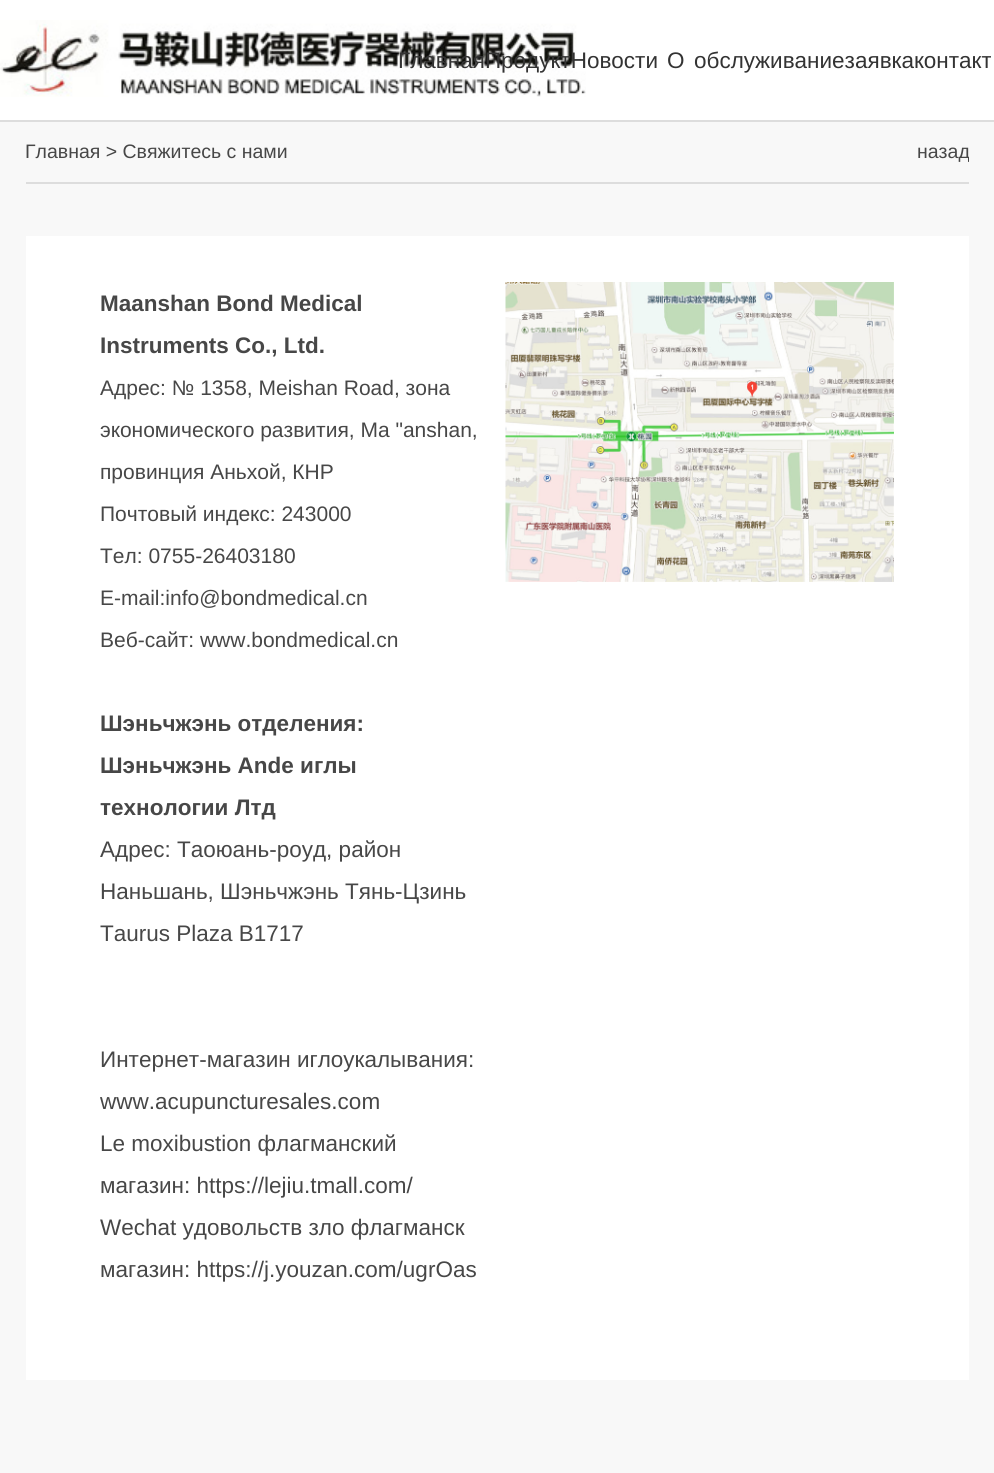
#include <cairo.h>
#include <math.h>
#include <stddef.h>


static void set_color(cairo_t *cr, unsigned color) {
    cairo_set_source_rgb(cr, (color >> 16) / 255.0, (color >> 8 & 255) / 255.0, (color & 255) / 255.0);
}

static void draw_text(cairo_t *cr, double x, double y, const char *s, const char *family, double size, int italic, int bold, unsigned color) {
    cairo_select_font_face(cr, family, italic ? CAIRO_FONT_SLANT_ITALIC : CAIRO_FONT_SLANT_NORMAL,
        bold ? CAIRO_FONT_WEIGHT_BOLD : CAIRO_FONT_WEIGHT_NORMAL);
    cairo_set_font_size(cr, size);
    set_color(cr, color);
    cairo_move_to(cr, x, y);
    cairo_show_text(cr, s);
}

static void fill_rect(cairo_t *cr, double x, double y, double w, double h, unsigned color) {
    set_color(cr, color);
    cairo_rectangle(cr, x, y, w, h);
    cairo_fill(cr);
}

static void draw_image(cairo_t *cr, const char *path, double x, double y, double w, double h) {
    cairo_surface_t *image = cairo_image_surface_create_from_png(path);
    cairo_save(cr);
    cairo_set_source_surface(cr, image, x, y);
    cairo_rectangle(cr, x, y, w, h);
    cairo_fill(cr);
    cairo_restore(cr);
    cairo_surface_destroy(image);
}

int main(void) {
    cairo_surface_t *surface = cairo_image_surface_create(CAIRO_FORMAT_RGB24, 994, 1473);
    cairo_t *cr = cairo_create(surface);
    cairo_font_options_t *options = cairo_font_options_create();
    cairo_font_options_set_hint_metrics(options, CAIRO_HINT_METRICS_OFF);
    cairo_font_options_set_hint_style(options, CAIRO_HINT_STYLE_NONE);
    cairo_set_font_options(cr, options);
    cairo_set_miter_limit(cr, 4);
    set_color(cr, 0xF8F8F8);
    cairo_paint(cr);
    fill_rect(cr, 0, 0, 994, 120, 0xFFFFFF);
    fill_rect(cr, 0, 120, 994, 2, 0xDDDDDD);
    draw_image(cr, "assets/img1.png", 0, 20, 586, 77);
    draw_text(cr, 398, 68, "ГлавнаяПродуктНовости", "Liberation Sans", 22.5, 0, 0, 0x333333);
    draw_text(cr, 667, 68, "О", "Liberation Sans", 22.5, 0, 0, 0x333333);
    draw_text(cr, 694, 68, "обслуживаниезаявкаконтакт", "Liberation Sans", 22.5, 0, 0, 0x333333);
    fill_rect(cr, 26, 182, 943, 2, 0xDDDDDD);
    draw_text(cr, 25, 158, "Главная > Свяжитесь с нами", "Liberation Sans", 19.5, 0, 0, 0x474747);
    cairo_save(cr);
    cairo_rectangle(cr, 26, 122, 943, 60);
    cairo_clip(cr);
    draw_text(cr, 917, 158, "назад", "Liberation Sans", 19.5, 0, 0, 0x474747);
    cairo_restore(cr);
    fill_rect(cr, 26, 236, 943, 1144, 0xFFFFFF);
    draw_text(cr, 100, 311, "Maanshan Bond Medical", "Liberation Sans", 22.5, 0, 1, 0x474747);
    draw_text(cr, 100, 353, "Instruments Co., Ltd.", "Liberation Sans", 22.5, 0, 1, 0x474747);
    draw_text(cr, 100, 395, "Адрес: № 1358, Meishan Road, зона", "Liberation Sans", 21, 0, 0, 0x474747);
    draw_text(cr, 100, 437, "экономического развития, Ma \"anshan,", "Liberation Sans", 21, 0, 0, 0x474747);
    draw_text(cr, 100, 479, "провинция Аньхой, КНР", "Liberation Sans", 21, 0, 0, 0x474747);
    draw_text(cr, 100, 521, "Почтовый индекс: 243000", "Liberation Sans", 21, 0, 0, 0x474747);
    draw_text(cr, 100, 563, "Тел: 0755-26403180", "Liberation Sans", 21, 0, 0, 0x474747);
    draw_text(cr, 100, 605, "E-mail:info@bondmedical.cn", "Liberation Sans", 21, 0, 0, 0x474747);
    draw_text(cr, 100, 647, "Веб-сайт: www.bondmedical.cn", "Liberation Sans", 21, 0, 0, 0x474747);
    draw_text(cr, 100, 731, "Шэньчжэнь отделения:", "Liberation Sans", 22.5, 0, 1, 0x474747);
    draw_text(cr, 100, 773, "Шэньчжэнь Ande иглы", "Liberation Sans", 22.5, 0, 1, 0x474747);
    draw_text(cr, 100, 815, "технологии Лтд", "Liberation Sans", 22.5, 0, 1, 0x474747);
    draw_text(cr, 100, 857, "Адрес: Таоюань-роуд, район", "Liberation Sans", 22.5, 0, 0, 0x474747);
    draw_text(cr, 100, 899, "Наньшань, Шэньчжэнь Тянь-Цзинь", "Liberation Sans", 22.5, 0, 0, 0x474747);
    draw_text(cr, 100, 941, "Taurus Plaza B1717", "Liberation Sans", 22.5, 0, 0, 0x474747);
    draw_text(cr, 100, 1067, "Интернет-магазин иглоукалывания:", "Liberation Sans", 22.5, 0, 0, 0x474747);
    draw_text(cr, 100, 1109, "www.acupuncturesales.com", "Liberation Sans", 22.5, 0, 0, 0x474747);
    draw_text(cr, 100, 1151, "Le moxibustion флагманский", "Liberation Sans", 22.5, 0, 0, 0x474747);
    draw_text(cr, 100, 1193, "магазин: https://lejiu.tmall.com/", "Liberation Sans", 22.5, 0, 0, 0x474747);
    draw_text(cr, 100, 1235, "Wechat удовольств зло флагманск", "Liberation Sans", 22.5, 0, 0, 0x474747);
    draw_text(cr, 100, 1277, "магазин: https://j.youzan.com/ugrOas", "Liberation Sans", 22.5, 0, 0, 0x474747);
    draw_image(cr, "assets/img2.png", 505, 282, 389, 300);
    cairo_surface_write_to_png(surface, "output.png");
    cairo_font_options_destroy(options);
    cairo_destroy(cr);
    cairo_surface_destroy(surface);
    return 0;
}
